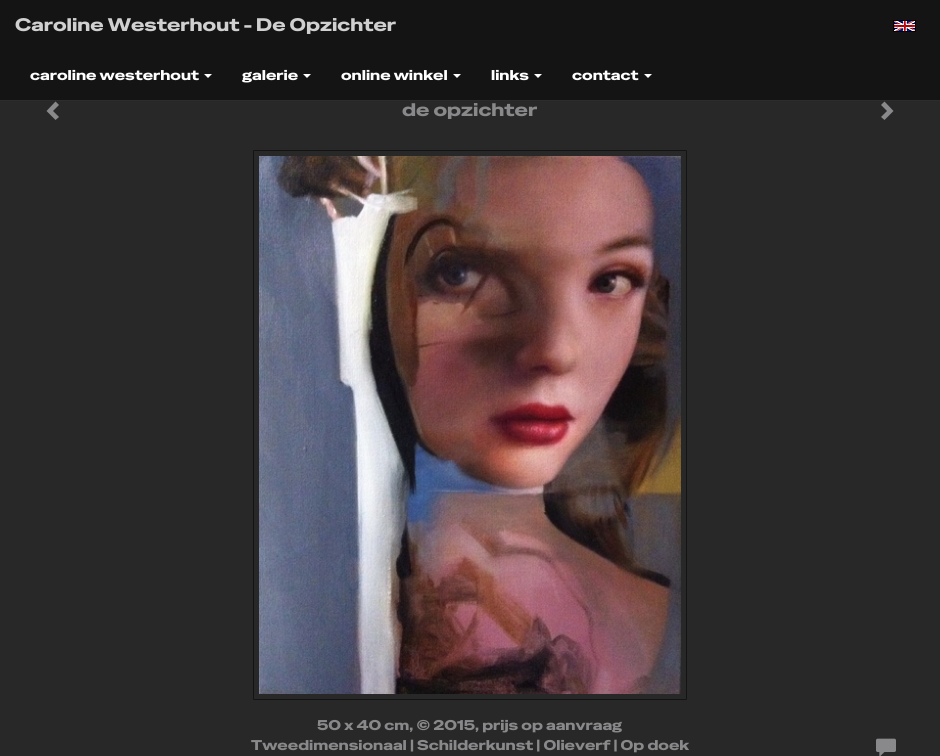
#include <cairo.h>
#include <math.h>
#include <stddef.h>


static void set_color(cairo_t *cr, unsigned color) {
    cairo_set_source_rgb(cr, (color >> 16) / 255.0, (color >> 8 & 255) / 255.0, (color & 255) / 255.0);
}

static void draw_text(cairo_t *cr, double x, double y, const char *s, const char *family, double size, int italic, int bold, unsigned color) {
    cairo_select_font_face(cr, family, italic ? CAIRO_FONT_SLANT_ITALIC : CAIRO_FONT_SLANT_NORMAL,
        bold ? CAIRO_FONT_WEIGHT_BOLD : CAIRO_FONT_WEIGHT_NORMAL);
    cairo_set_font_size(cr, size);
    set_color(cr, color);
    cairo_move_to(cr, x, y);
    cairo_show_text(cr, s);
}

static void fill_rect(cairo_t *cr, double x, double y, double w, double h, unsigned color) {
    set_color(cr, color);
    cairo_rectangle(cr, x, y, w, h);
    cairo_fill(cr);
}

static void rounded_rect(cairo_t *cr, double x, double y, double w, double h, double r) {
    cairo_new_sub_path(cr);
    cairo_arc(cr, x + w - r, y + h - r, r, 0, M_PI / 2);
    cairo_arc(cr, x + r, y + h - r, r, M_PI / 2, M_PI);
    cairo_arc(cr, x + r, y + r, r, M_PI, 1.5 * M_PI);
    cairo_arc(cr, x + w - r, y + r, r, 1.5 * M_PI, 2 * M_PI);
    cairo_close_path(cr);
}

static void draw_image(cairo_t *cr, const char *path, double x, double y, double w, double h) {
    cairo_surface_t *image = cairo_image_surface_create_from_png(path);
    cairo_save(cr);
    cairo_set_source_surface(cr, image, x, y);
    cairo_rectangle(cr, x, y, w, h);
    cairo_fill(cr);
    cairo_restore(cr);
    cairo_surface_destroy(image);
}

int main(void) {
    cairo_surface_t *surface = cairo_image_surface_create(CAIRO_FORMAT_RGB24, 940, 756);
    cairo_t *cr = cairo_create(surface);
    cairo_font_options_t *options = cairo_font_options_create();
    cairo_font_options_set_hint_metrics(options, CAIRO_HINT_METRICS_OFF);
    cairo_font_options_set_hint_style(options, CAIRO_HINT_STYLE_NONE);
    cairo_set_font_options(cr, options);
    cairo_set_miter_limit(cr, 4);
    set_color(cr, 0x282828);
    cairo_paint(cr);
    fill_rect(cr, 0, 0, 940, 100, 0x141414);
    fill_rect(cr, 0, 100, 940, 1, 0x2D2D2D);
    draw_text(cr, 15, 31, "Caroline Westerhout - De Opzichter", "Special Gothic Expanded One", 18, 0, 0, 0xD0D0D0);
    draw_image(cr, "assets/img1.png", 893, 20, 23, 12);
    draw_text(cr, 30, 80, "caroline westerhout", "Special Gothic Expanded One", 14, 0, 0, 0xFFFFFF);
    cairo_new_path(cr);
    cairo_move_to(cr, 204, 74);
    cairo_line_to(cr, 212, 74);
    cairo_line_to(cr, 208, 78);
    cairo_close_path(cr);
    cairo_fill(cr);
    draw_text(cr, 242, 80, "galerie", "Special Gothic Expanded One", 14, 0, 0, 0xFFFFFF);
    cairo_new_path(cr);
    cairo_move_to(cr, 303, 74);
    cairo_line_to(cr, 311, 74);
    cairo_line_to(cr, 307, 78);
    cairo_close_path(cr);
    cairo_fill(cr);
    draw_text(cr, 341, 80, "online winkel", "Special Gothic Expanded One", 14, 0, 0, 0xFFFFFF);
    cairo_new_path(cr);
    cairo_move_to(cr, 453, 74);
    cairo_line_to(cr, 461, 74);
    cairo_line_to(cr, 457, 78);
    cairo_close_path(cr);
    cairo_fill(cr);
    draw_text(cr, 491, 80, "links", "Special Gothic Expanded One", 14, 0, 0, 0xFFFFFF);
    cairo_new_path(cr);
    cairo_move_to(cr, 534, 74);
    cairo_line_to(cr, 542, 74);
    cairo_line_to(cr, 538, 78);
    cairo_close_path(cr);
    cairo_fill(cr);
    draw_text(cr, 572, 80, "contact", "Special Gothic Expanded One", 14, 0, 0, 0xFFFFFF);
    cairo_new_path(cr);
    cairo_move_to(cr, 644, 74);
    cairo_line_to(cr, 652, 74);
    cairo_line_to(cr, 648, 78);
    cairo_close_path(cr);
    cairo_fill(cr);
    set_color(cr, 0x89898B);
    cairo_new_path(cr);
    cairo_move_to(cr, 59, 105);
    cairo_line_to(cr, 53, 111);
    cairo_line_to(cr, 59, 117);
    cairo_line_to(cr, 55.5, 120);
    cairo_line_to(cr, 46.5, 111);
    cairo_line_to(cr, 55.5, 101.5);
    cairo_close_path(cr);
    cairo_fill(cr);
    draw_text(cr, 402, 116, "de opzichter", "Special Gothic Expanded One", 18, 0, 0, 0x89898B);
    cairo_new_path(cr);
    cairo_move_to(cr, 893.5, 111);
    cairo_line_to(cr, 884.5, 120);
    cairo_line_to(cr, 881, 117);
    cairo_line_to(cr, 887, 111);
    cairo_line_to(cr, 881, 105);
    cairo_line_to(cr, 884.5, 101.5);
    cairo_close_path(cr);
    cairo_fill(cr);
    rounded_rect(cr, 253.5, 150.5, 433, 549, 0.5);
    set_color(cr, 0x141414);
    cairo_set_line_width(cr, 1);
    cairo_stroke(cr);
    draw_image(cr, "assets/img2.png", 259, 156, 422, 538);
    draw_text(cr, 317, 730, "50 x 40 cm, © 2015, prijs op aanvraag", "Special Gothic Expanded One", 14, 0, 0, 0x89898B);
    draw_text(cr, 251, 750, "Tweedimensionaal | Schilderkunst | Olieverf | Op doek", "Special Gothic Expanded One", 14, 0, 0, 0x89898B);
    draw_image(cr, "assets/img3.png", 876, 738, 20, 18);
    cairo_surface_write_to_png(surface, "output.png");
    cairo_font_options_destroy(options);
    cairo_destroy(cr);
    cairo_surface_destroy(surface);
    return 0;
}
